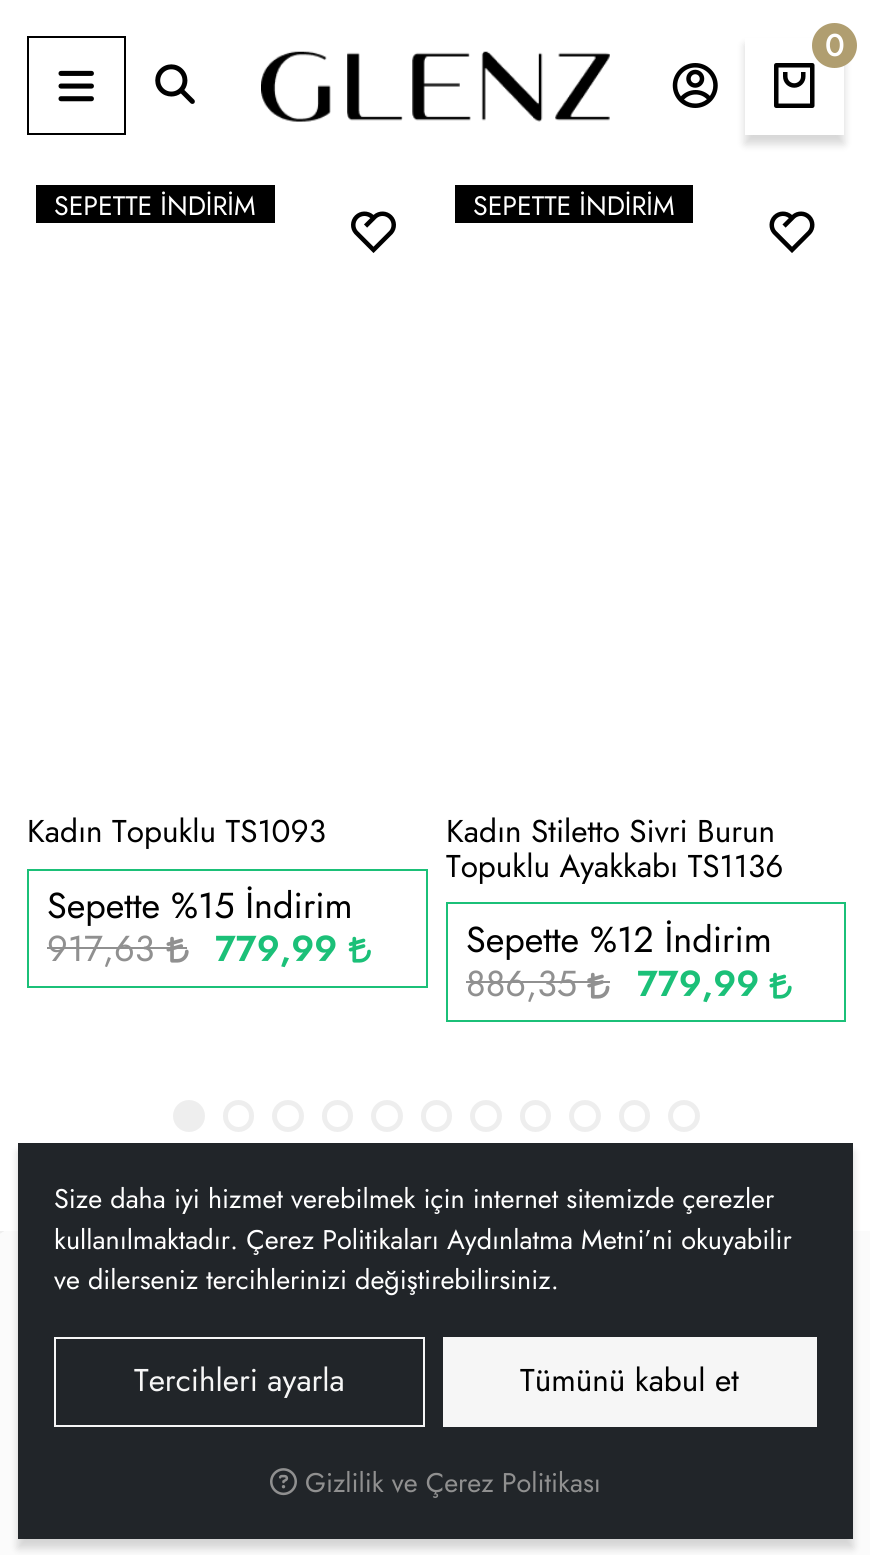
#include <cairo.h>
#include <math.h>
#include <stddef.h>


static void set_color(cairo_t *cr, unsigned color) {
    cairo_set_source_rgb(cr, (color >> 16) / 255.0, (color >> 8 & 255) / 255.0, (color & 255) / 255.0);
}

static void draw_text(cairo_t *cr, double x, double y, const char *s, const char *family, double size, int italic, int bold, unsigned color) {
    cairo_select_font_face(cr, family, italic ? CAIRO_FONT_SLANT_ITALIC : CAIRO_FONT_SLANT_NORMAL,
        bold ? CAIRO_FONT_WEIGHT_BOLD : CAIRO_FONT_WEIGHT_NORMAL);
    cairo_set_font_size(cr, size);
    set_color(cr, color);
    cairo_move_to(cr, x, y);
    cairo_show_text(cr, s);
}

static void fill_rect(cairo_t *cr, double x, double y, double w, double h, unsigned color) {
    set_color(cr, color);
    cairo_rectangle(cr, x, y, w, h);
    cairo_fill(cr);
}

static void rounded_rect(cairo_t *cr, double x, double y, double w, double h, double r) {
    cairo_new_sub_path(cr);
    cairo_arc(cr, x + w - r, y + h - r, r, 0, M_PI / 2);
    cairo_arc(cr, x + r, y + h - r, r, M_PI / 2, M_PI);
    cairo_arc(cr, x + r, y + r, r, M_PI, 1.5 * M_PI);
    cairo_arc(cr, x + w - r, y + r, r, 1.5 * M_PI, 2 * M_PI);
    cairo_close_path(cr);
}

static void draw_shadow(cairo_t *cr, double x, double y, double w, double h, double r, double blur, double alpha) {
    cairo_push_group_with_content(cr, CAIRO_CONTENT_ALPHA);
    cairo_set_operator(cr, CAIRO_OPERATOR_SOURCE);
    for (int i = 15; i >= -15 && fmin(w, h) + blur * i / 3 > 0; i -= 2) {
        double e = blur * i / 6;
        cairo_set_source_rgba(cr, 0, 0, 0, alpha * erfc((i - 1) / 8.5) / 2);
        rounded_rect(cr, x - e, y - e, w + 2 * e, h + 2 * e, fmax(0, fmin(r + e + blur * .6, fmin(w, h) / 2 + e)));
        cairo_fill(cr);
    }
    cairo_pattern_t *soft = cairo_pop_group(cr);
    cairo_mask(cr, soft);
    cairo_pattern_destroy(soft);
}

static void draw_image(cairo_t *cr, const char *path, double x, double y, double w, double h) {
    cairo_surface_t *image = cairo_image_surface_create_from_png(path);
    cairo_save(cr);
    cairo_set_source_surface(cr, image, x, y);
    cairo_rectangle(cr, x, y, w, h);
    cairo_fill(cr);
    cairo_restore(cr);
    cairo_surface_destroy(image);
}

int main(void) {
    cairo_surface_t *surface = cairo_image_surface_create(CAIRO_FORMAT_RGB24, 870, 1555);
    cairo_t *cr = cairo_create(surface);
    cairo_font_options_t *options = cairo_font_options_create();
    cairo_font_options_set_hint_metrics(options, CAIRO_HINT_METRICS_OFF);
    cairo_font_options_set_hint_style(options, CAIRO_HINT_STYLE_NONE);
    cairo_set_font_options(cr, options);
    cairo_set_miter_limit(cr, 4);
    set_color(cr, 0xFFFFFF);
    cairo_paint(cr);
    cairo_rectangle(cr, 28, 37, 97, 97);
    set_color(cr, 0x000000);
    cairo_stroke(cr);
    draw_image(cr, "assets/img1.png", 58, 70, 36, 32);
    draw_image(cr, "assets/img2.png", 155, 64, 40, 40);
    draw_image(cr, "assets/img3.png", 261, 51, 349, 71);
    set_color(cr, 0x000000);
    draw_shadow(cr, 745, 45, 99, 99, 0, 4.5, 0.16);
    fill_rect(cr, 745, 38, 99, 97, 0xFFFFFF);
    draw_image(cr, "assets/img4.png", 774, 63, 41, 45);
    set_color(cr, 0xB09E70);
    cairo_arc(cr, 834.5, 45.5, 22.5, 0, 2 * M_PI);
    cairo_fill(cr);
    draw_text(cr, 825, 56, "0", "Jost Medium", 31.5, 0, 0, 0xFFFFFF);
    draw_image(cr, "assets/img5.png", 672, 63, 46, 45);
    fill_rect(cr, 36, 185, 239, 38, 0x000000);
    draw_text(cr, 54, 215, "SEPETTE İNDİRİM", "Jost", 26.75, 0, 0, 0xFFFFFF);
    cairo_rectangle(cr, 28, 870, 399, 117);
    set_color(cr, 0x1BC078);
    cairo_stroke(cr);
    draw_text(cr, 47, 918, "Sepette %15 İndirim", "Jost", 36, 0, 0, 0x000000);
    draw_text(cr, 47, 961, "917,63", "Jost", 36, 0, 0, 0x909090);
    draw_image(cr, "assets/img6.png", 166, 936, 23, 27);
    fill_rect(cr, 47, 947, 140, 2, 0x909090);
    draw_text(cr, 215, 961, "779,99", "Jost SemiBold", 36, 0, 0, 0x1BC078);
    draw_image(cr, "assets/img7.png", 348, 936, 23, 27);
    draw_text(cr, 27, 842, "Kadın Topuklu TS1093", "Jost", 31.5, 0, 0, 0x000000);
    draw_image(cr, "assets/img8.png", 351, 211, 45, 42);
    fill_rect(cr, 455, 185, 238, 38, 0x000000);
    draw_text(cr, 473, 215, "SEPETTE İNDİRİM", "Jost", 26.75, 0, 0, 0xFFFFFF);
    cairo_rectangle(cr, 447, 903, 398, 118);
    set_color(cr, 0x1BC078);
    cairo_stroke(cr);
    draw_text(cr, 466, 952, "Sepette %12 İndirim", "Jost", 36, 0, 0, 0x000000);
    draw_text(cr, 466, 996, "886,35", "Jost", 36, 0, 0, 0x909090);
    draw_image(cr, "assets/img9.png", 587, 972, 23, 27);
    fill_rect(cr, 466, 981, 144, 2, 0x909090);
    draw_text(cr, 637, 996, "779,99", "Jost SemiBold", 36, 0, 0, 0x1BC078);
    draw_image(cr, "assets/img10.png", 769, 972, 23, 27);
    draw_text(cr, 446, 842, "Kadın Stiletto Sivri Burun", "Jost", 31.5, 0, 0, 0x000000);
    draw_text(cr, 446, 877, "Topuklu Ayakkabı TS1136", "Jost", 31.5, 0, 0, 0x000000);
    draw_image(cr, "assets/img11.png", 769, 211, 46, 42);
    set_color(cr, 0xEEEEEE);
    cairo_arc(cr, 189, 1116, 13.5, 0, 2 * M_PI);
    cairo_fill_preserve(cr);
    cairo_set_line_width(cr, 5);
    cairo_stroke(cr);
    rounded_rect(cr, 225.5, 1102.5, 26, 27, 13);
    cairo_stroke(cr);
    cairo_arc(cr, 288, 1116, 13.5, 0, 2 * M_PI);
    cairo_stroke(cr);
    rounded_rect(cr, 324.5, 1102.5, 26, 27, 13);
    cairo_stroke(cr);
    cairo_arc(cr, 387, 1116, 13.5, 0, 2 * M_PI);
    cairo_stroke(cr);
    rounded_rect(cr, 423.5, 1102.5, 26, 27, 13);
    cairo_stroke(cr);
    cairo_arc(cr, 486, 1116, 13.5, 0, 2 * M_PI);
    cairo_stroke(cr);
    rounded_rect(cr, 522.5, 1102.5, 26, 27, 13);
    cairo_stroke(cr);
    cairo_arc(cr, 585, 1116, 13.5, 0, 2 * M_PI);
    cairo_stroke(cr);
    rounded_rect(cr, 621.5, 1102.5, 26, 27, 13);
    cairo_stroke(cr);
    cairo_arc(cr, 684, 1116, 13.5, 0, 2 * M_PI);
    cairo_stroke(cr);
    fill_rect(cr, 0, 1231, 870, 324, 0xFBFBFB);
    draw_image(cr, "assets/img13.png", 0, 1231, 4, 3);
    set_color(cr, 0x000000);
    draw_shadow(cr, 18, 1152, 835, 396, 0, 4.5, 0.16);
    fill_rect(cr, 18, 1143, 835, 396, 0x212529);
    draw_text(cr, 54, 1208, "Size daha iyi hizmet verebilmek için internet sitemizde çerezler", "Jost", 27, 0, 0, 0xFFFFFF);
    draw_text(cr, 54, 1249, "kullanılmaktadır. Çerez Politikaları Aydınlatma Metni’ni okuyabilir", "Jost", 27, 0, 0, 0xFFFFFF);
    draw_text(cr, 54, 1289, "ve dilerseniz tercihlerinizi değiştirebilirsiniz.", "Jost", 27, 0, 0, 0xFFFFFF);
    cairo_rectangle(cr, 55, 1338, 369, 88);
    set_color(cr, 0xF6F6F6);
    cairo_set_line_width(cr, 2);
    cairo_stroke(cr);
    draw_text(cr, 134, 1391, "Tercihleri ayarla", "Jost", 31.5, 0, 0, 0xF6F6F6);
    fill_rect(cr, 443, 1337, 374, 90, 0xF6F6F6);
    draw_text(cr, 520, 1391, "Tümünü kabul et", "Jost", 31.5, 0, 0, 0x000000);
    draw_image(cr, "assets/img12.png", 270, 1468, 27, 28);
    draw_text(cr, 305, 1492, "Gizlilik ve Çerez Politikası", "Jost", 27, 0, 0, 0x909090);
    cairo_surface_write_to_png(surface, "output.png");
    cairo_font_options_destroy(options);
    cairo_destroy(cr);
    cairo_surface_destroy(surface);
    return 0;
}
